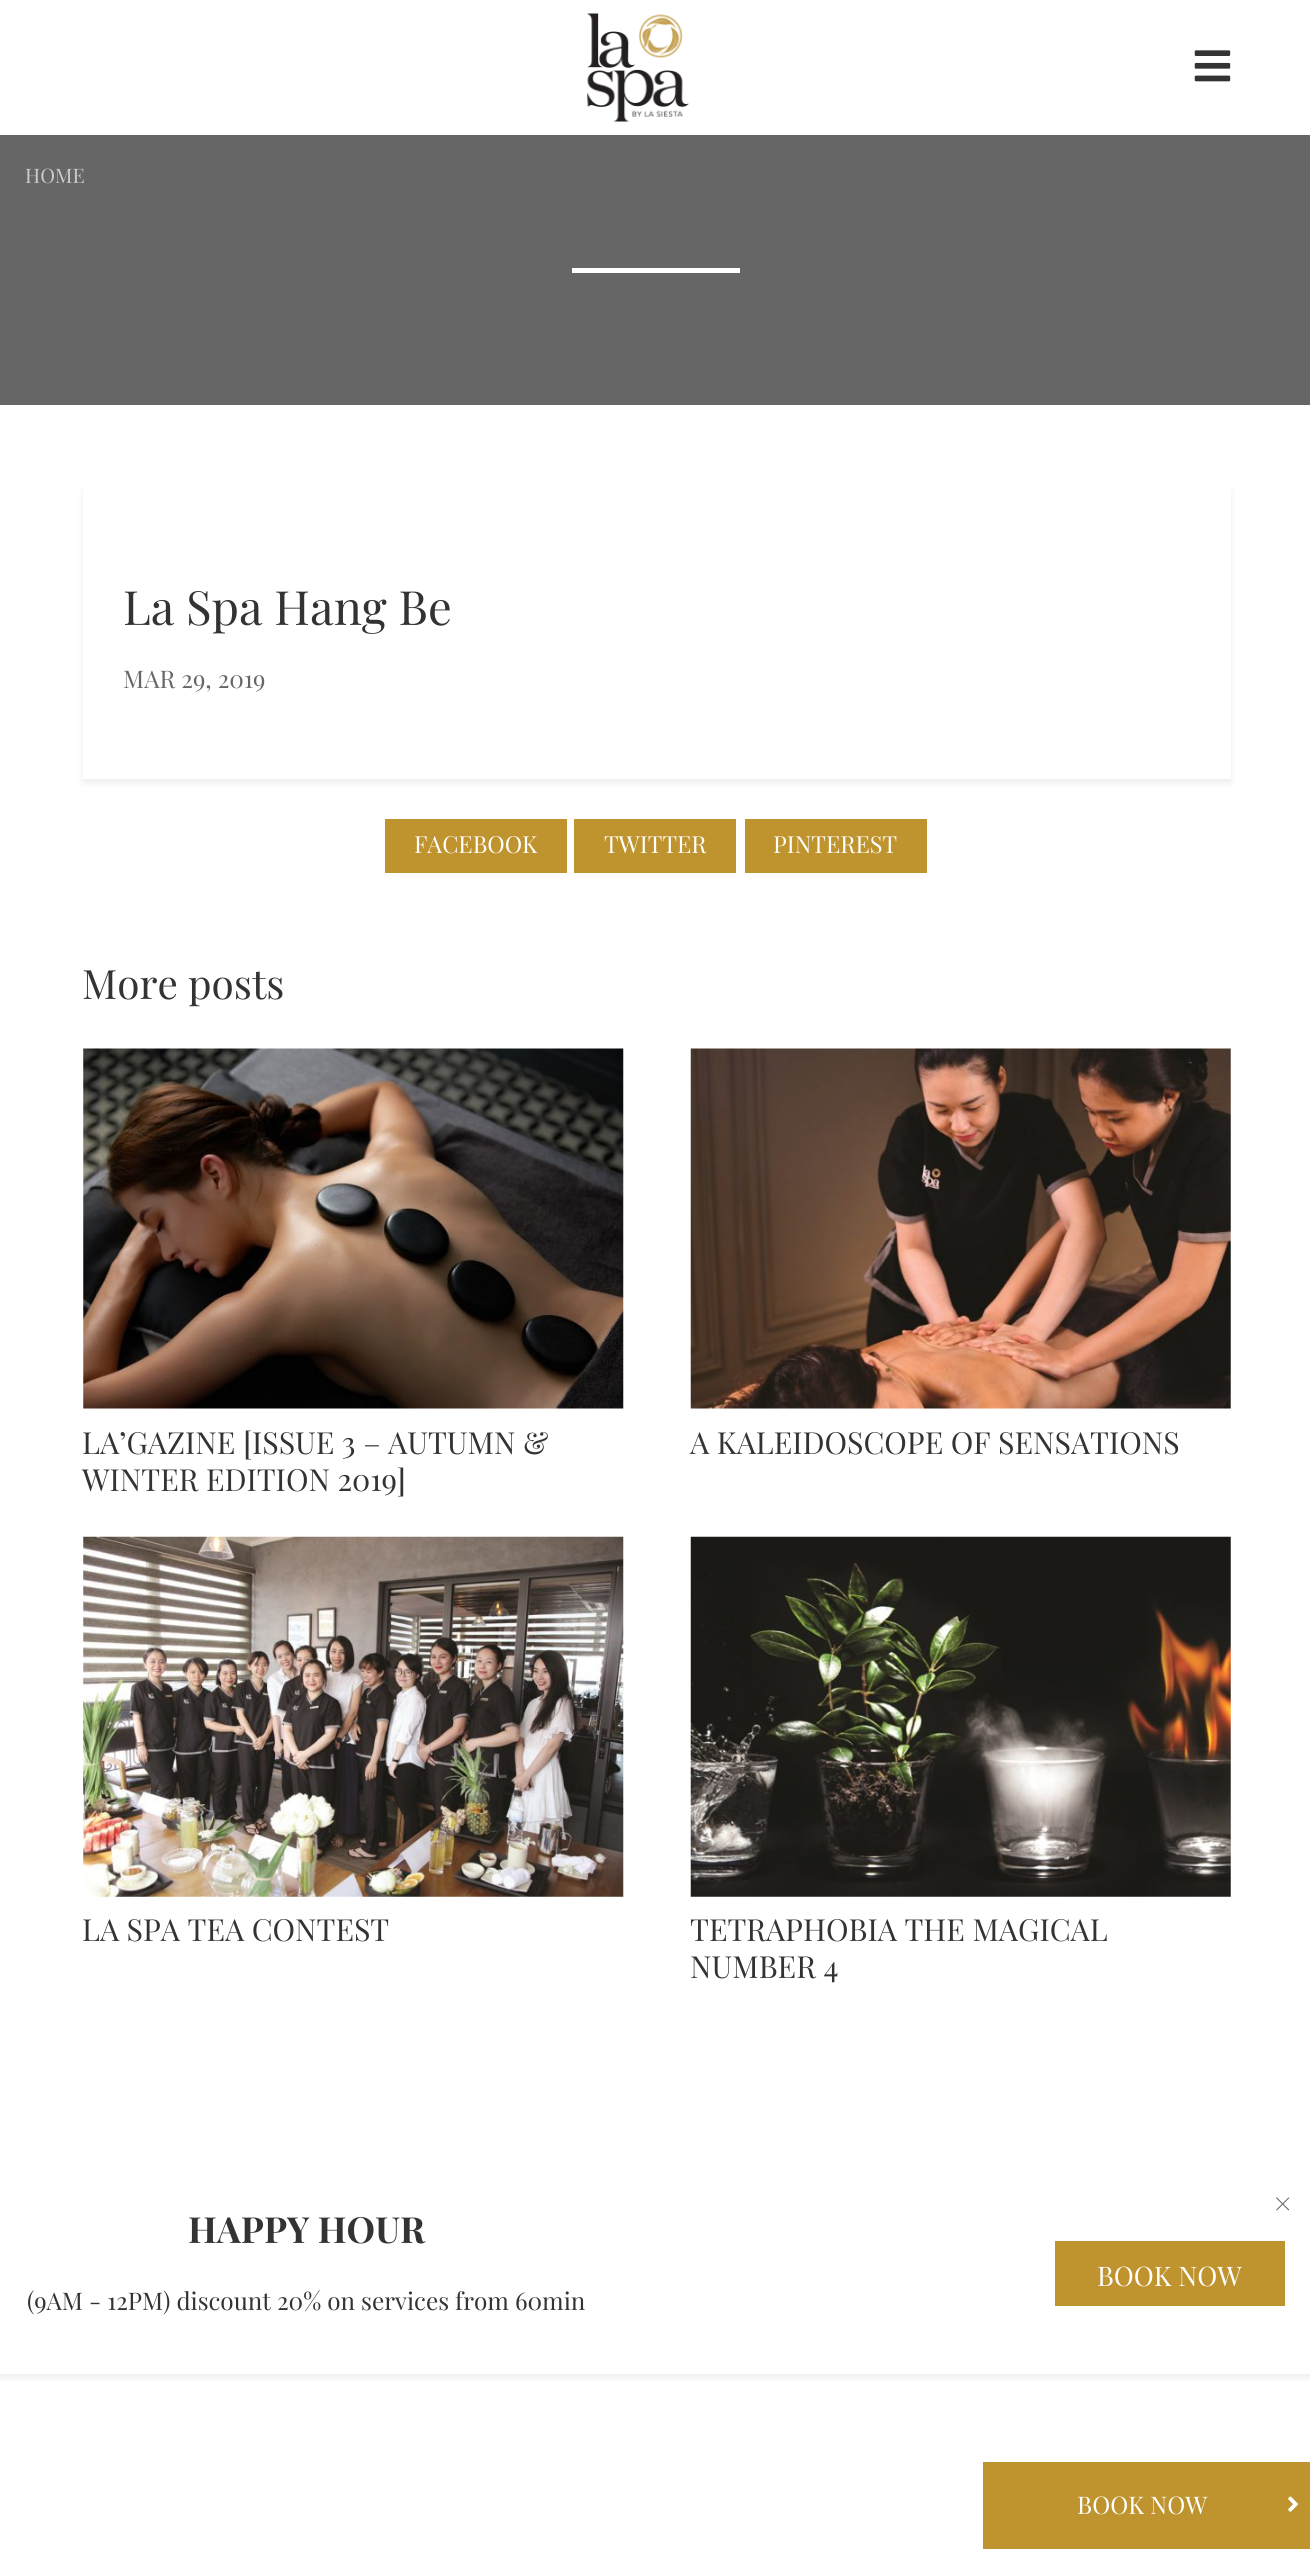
#include <cairo.h>
#include <math.h>
#include <stddef.h>


static void set_color(cairo_t *cr, unsigned color) {
    cairo_set_source_rgb(cr, (color >> 16) / 255.0, (color >> 8 & 255) / 255.0, (color & 255) / 255.0);
}

static void draw_text(cairo_t *cr, double x, double y, const char *s, const char *family, double size, int italic, int bold, unsigned color) {
    cairo_select_font_face(cr, family, italic ? CAIRO_FONT_SLANT_ITALIC : CAIRO_FONT_SLANT_NORMAL,
        bold ? CAIRO_FONT_WEIGHT_BOLD : CAIRO_FONT_WEIGHT_NORMAL);
    cairo_set_font_size(cr, size);
    set_color(cr, color);
    cairo_move_to(cr, x, y);
    cairo_show_text(cr, s);
}

static void fill_rect(cairo_t *cr, double x, double y, double w, double h, unsigned color) {
    set_color(cr, color);
    cairo_rectangle(cr, x, y, w, h);
    cairo_fill(cr);
}

static void rounded_rect(cairo_t *cr, double x, double y, double w, double h, double r) {
    cairo_new_sub_path(cr);
    cairo_arc(cr, x + w - r, y + h - r, r, 0, M_PI / 2);
    cairo_arc(cr, x + r, y + h - r, r, M_PI / 2, M_PI);
    cairo_arc(cr, x + r, y + r, r, M_PI, 1.5 * M_PI);
    cairo_arc(cr, x + w - r, y + r, r, 1.5 * M_PI, 2 * M_PI);
    cairo_close_path(cr);
}

static void draw_shadow(cairo_t *cr, double x, double y, double w, double h, double r, double blur, double alpha) {
    cairo_push_group_with_content(cr, CAIRO_CONTENT_ALPHA);
    cairo_set_operator(cr, CAIRO_OPERATOR_SOURCE);
    for (int i = 15; i >= -15 && fmin(w, h) + blur * i / 3 > 0; i -= 2) {
        double e = blur * i / 6;
        cairo_set_source_rgba(cr, 0, 0, 0, alpha * erfc((i - 1) / 8.5) / 2);
        rounded_rect(cr, x - e, y - e, w + 2 * e, h + 2 * e, fmax(0, fmin(r + e + blur * .6, fmin(w, h) / 2 + e)));
        cairo_fill(cr);
    }
    cairo_pattern_t *soft = cairo_pop_group(cr);
    cairo_mask(cr, soft);
    cairo_pattern_destroy(soft);
}

static void draw_image(cairo_t *cr, const char *path, double x, double y, double w, double h) {
    cairo_surface_t *image = cairo_image_surface_create_from_png(path);
    cairo_save(cr);
    cairo_set_source_surface(cr, image, x, y);
    cairo_rectangle(cr, x, y, w, h);
    cairo_fill(cr);
    cairo_restore(cr);
    cairo_surface_destroy(image);
}

int main(void) {
    cairo_surface_t *surface = cairo_image_surface_create(CAIRO_FORMAT_RGB24, 1310, 2549);
    cairo_t *cr = cairo_create(surface);
    cairo_font_options_t *options = cairo_font_options_create();
    cairo_font_options_set_hint_metrics(options, CAIRO_HINT_METRICS_OFF);
    cairo_font_options_set_hint_style(options, CAIRO_HINT_STYLE_NONE);
    cairo_set_font_options(cr, options);
    cairo_set_miter_limit(cr, 4);
    set_color(cr, 0xFFFFFF);
    cairo_paint(cr);
    draw_image(cr, "assets/img1.png", 587, 13, 102, 109);
    draw_image(cr, "assets/img2.png", 1194, 50, 37, 32);
    fill_rect(cr, 0, 135, 1310, 270, 0x666666);
    draw_text(cr, 25, 183, "HOME", "Playfair Display", 20, 0, 0, 0xCCCCCC);
    fill_rect(cr, 572, 268, 168, 5, 0xFFFFFF);
    cairo_save(cr);
    cairo_set_fill_rule(cr, CAIRO_FILL_RULE_EVEN_ODD);
    cairo_new_path(cr);
    cairo_move_to(cr, 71, 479);
    cairo_line_to(cr, 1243, 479);
    cairo_line_to(cr, 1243, 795);
    cairo_line_to(cr, 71, 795);
    cairo_close_path(cr);
    cairo_move_to(cr, 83, 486);
    cairo_line_to(cr, 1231, 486);
    cairo_line_to(cr, 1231, 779);
    cairo_line_to(cr, 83, 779);
    cairo_close_path(cr);
    cairo_clip(cr);
    set_color(cr, 0x000000);
    draw_shadow(cr, 83, 491, 1148, 292, 0, 3.5, 0.07);
    cairo_restore(cr);
    draw_text(cr, 123, 625, "La Spa Hang Be", "Playfair Display", 47.25, 0, 0, 0x333333);
    draw_text(cr, 123, 688, "MAR 29, 2019", "Playfair Display", 24.3, 0, 0, 0x666666);
    fill_rect(cr, 385, 819, 182, 54, 0xBF932E);
    draw_text(cr, 414, 853, "FACEBOOK", "Playfair Display", 23.5, 0, 0, 0xFFFFFF);
    fill_rect(cr, 574, 819, 162, 54, 0xBF932E);
    draw_text(cr, 604, 853, "TWITTER", "Playfair Display", 23.5, 0, 0, 0xFFFFFF);
    fill_rect(cr, 745, 819, 182, 54, 0xBF932E);
    draw_text(cr, 773, 853, "PINTEREST", "Playfair Display", 23.5, 0, 0, 0xFFFFFF);
    draw_text(cr, 82, 999, "More posts", "Playfair Display", 40.5, 0, 0, 0x333333);
    draw_image(cr, "assets/img3.png", 83, 1048, 541, 361);
    draw_text(cr, 82, 1454, "LA’GAZINE [ISSUE 3 – AUTUMN &", "Playfair Display", 30.4, 0, 0, 0x333333);
    draw_text(cr, 82, 1491, "WINTER EDITION 2019]", "Playfair Display", 30.4, 0, 0, 0x333333);
    draw_image(cr, "assets/img4.png", 690, 1048, 541, 361);
    draw_text(cr, 690, 1454, "A KALEIDOSCOPE OF SENSATIONS", "Playfair Display", 30.4, 0, 0, 0x333333);
    draw_image(cr, "assets/img5.png", 83, 1536, 541, 361);
    draw_text(cr, 82, 1941, "LA SPA TEA CONTEST", "Playfair Display", 30.4, 0, 0, 0x333333);
    draw_image(cr, "assets/img6.png", 690, 1536, 541, 361);
    draw_text(cr, 690, 1941, "TETRAPHOBIA THE MAGICAL", "Playfair Display", 30.4, 0, 0, 0x333333);
    draw_text(cr, 690, 1978, "NUMBER 4", "Playfair Display", 30.4, 0, 0, 0x333333);
    set_color(cr, 0x000000);
    draw_shadow(cr, 0, 2180, 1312, 198, 0, 3.5, 0.07);
    fill_rect(cr, 0, 2176, 1310, 198, 0xFFFFFF);
    draw_text(cr, 1274, 2216, "×", "Playfair Display", 34, 0, 0, 0x666666);
    draw_text(cr, 188, 2243, "HAPPY HOUR", "Playfair Display", 36, 0, 1, 0x333333);
    draw_text(cr, 27, 2310, "(9AM - 12PM) discount 20% on services from 60min", "Playfair Display", 24.3, 0, 0, 0x333333);
    fill_rect(cr, 1055, 2241, 230, 65, 0xBF932E);
    draw_text(cr, 1097, 2286, "BOOK NOW", "Playfair Display", 27, 0, 0, 0xFFFFFF);
    fill_rect(cr, 983, 2462, 327, 87, 0xBF932E);
    draw_text(cr, 1077, 2514, "BOOK NOW", "Playfair Display", 24.3, 0, 0, 0xFFFFFF);
    draw_image(cr, "assets/img7.png", 1288, 2496, 10, 16);
    cairo_surface_write_to_png(surface, "output.png");
    cairo_font_options_destroy(options);
    cairo_destroy(cr);
    cairo_surface_destroy(surface);
    return 0;
}
